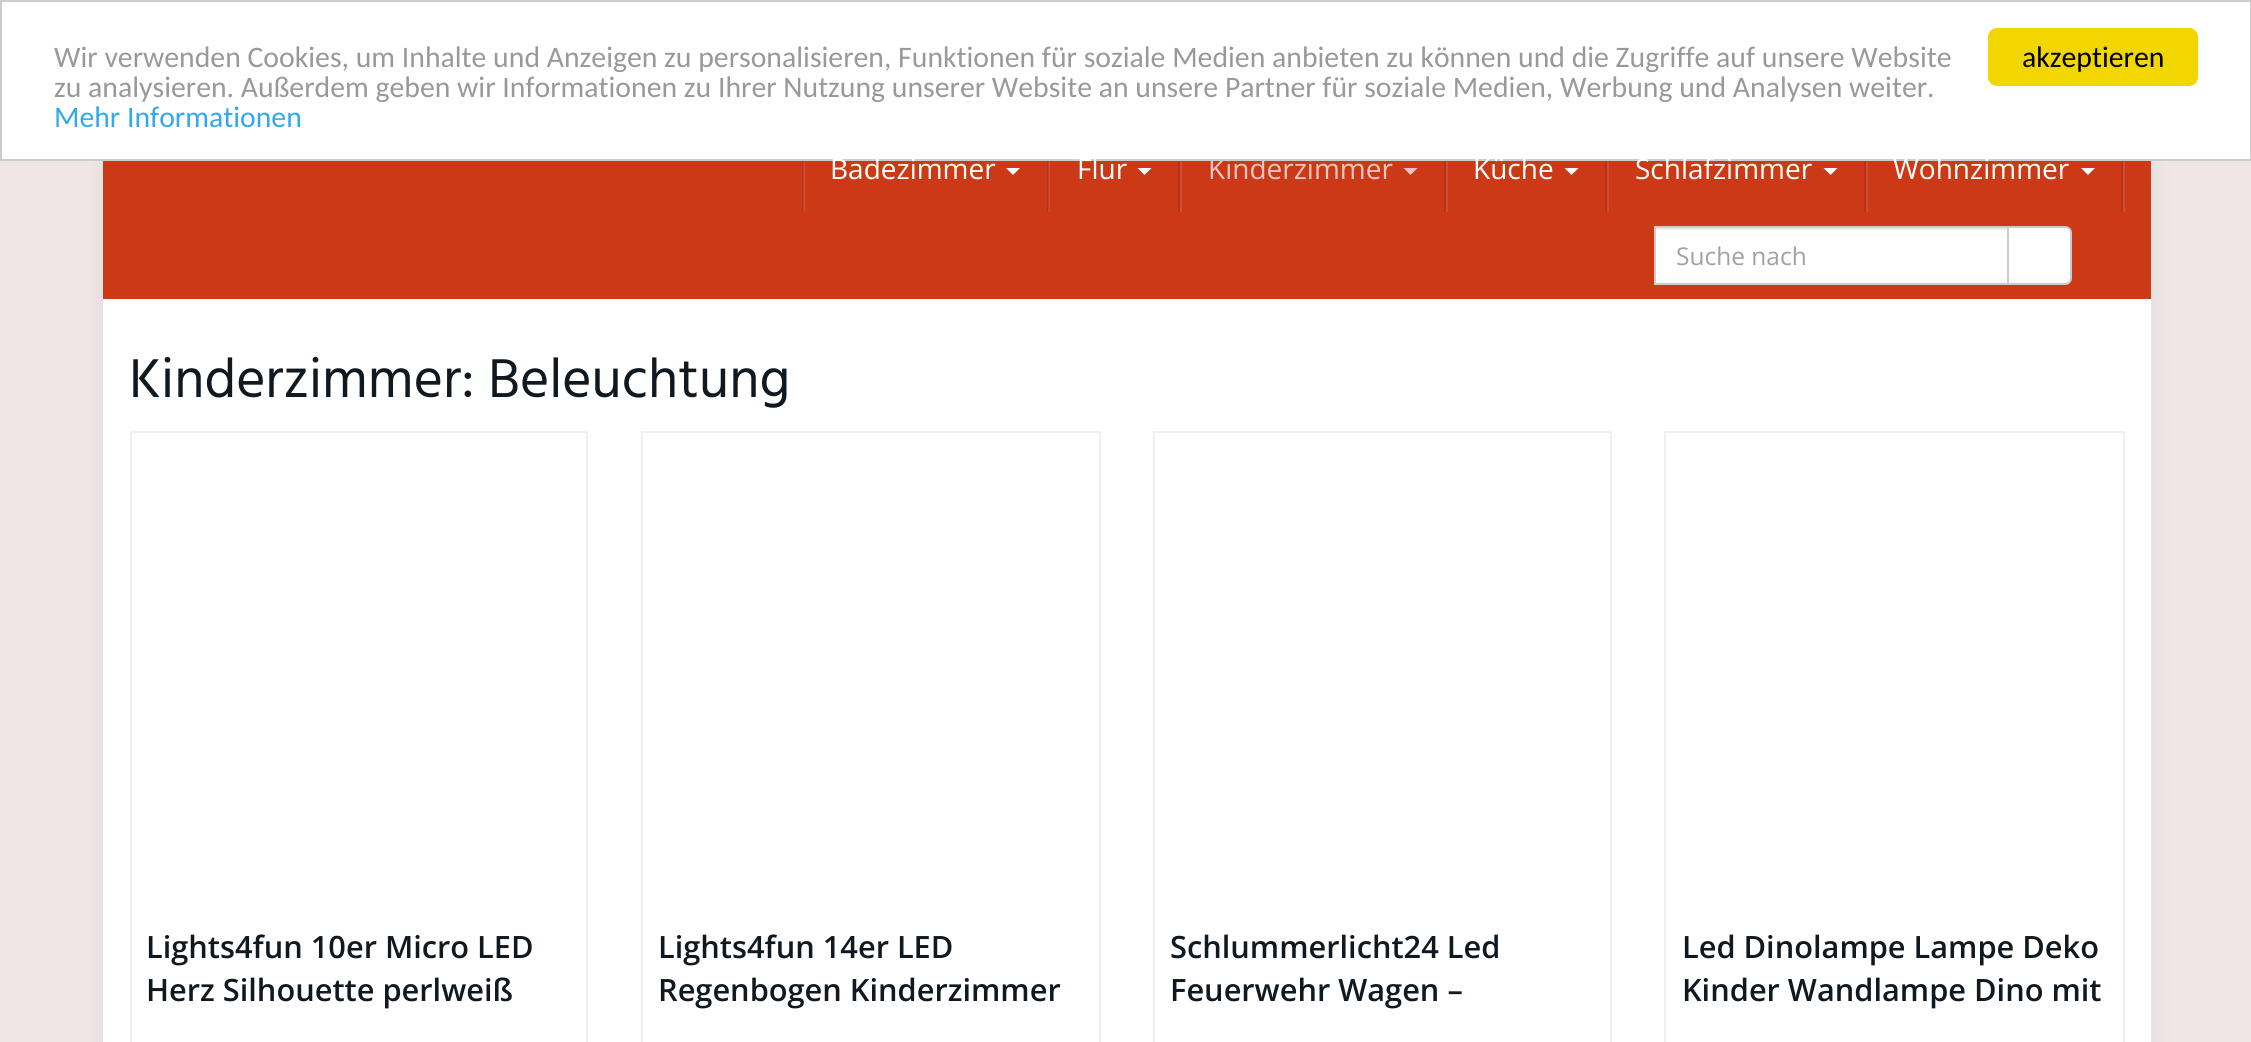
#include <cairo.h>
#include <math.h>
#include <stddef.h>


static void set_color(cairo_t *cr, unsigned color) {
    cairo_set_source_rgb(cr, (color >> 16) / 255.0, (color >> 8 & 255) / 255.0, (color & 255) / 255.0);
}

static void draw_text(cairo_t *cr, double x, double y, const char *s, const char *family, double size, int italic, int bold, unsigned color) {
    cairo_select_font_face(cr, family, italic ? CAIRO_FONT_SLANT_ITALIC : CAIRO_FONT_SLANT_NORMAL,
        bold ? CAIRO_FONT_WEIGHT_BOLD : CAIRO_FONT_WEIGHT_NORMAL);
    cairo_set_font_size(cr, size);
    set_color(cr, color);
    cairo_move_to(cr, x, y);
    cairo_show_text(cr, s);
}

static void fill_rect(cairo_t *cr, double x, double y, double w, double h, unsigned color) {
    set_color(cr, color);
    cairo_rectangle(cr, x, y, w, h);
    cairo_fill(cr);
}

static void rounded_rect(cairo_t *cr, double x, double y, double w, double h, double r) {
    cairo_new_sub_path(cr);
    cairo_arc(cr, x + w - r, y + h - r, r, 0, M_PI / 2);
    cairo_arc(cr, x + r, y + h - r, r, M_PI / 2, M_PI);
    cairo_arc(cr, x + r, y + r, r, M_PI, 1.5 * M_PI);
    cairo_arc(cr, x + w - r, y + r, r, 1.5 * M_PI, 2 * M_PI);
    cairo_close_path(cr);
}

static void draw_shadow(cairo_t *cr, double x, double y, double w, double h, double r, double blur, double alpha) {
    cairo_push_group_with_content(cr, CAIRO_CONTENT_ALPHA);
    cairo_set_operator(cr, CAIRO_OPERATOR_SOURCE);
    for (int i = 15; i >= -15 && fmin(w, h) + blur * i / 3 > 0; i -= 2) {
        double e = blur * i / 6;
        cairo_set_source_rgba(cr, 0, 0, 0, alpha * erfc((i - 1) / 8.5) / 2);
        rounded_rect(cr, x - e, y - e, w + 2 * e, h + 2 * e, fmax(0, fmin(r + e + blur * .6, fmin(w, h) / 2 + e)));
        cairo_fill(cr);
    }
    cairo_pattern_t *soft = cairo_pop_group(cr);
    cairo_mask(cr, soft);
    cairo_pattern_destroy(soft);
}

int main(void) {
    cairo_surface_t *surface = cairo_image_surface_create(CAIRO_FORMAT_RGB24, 2251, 1042);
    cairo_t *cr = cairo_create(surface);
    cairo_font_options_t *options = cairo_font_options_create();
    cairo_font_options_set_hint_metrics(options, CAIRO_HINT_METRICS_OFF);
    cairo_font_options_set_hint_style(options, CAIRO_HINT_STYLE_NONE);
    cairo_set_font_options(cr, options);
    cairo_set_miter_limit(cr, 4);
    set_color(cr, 0xEFE6E6);
    cairo_paint(cr);
    set_color(cr, 0xDDDDDD);
    draw_shadow(cr, 103, 116, 2048, 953, 0, 9, 1);
    fill_rect(cr, 103, 161, 2048, 138, 0xCC3917);
    draw_text(cr, 1208, 179, "Kinderzimmer", "Open Sans", 28, 0, 0, 0xEFC4C4);
    set_color(cr, 0xFFFFFF);
    cairo_rectangle(cr, 1, 1, 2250, 159);
    cairo_fill_preserve(cr);
    set_color(cr, 0xCCCCCC);
    cairo_stroke(cr);
    draw_text(cr, 54, 67, "Wir verwenden Cookies, um Inhalte und Anzeigen zu personalisieren, Funktionen für soziale Medien anbieten zu können und die Zugriffe auf unsere Website", "Carlito", 29.75, 0, 0, 0x999999);
    draw_text(cr, 54, 97, "zu analysieren. Außerdem geben wir Informationen zu Ihrer Nutzung unserer Website an unsere Partner für soziale Medien, Werbung und Analysen weiter.", "Carlito", 29.75, 0, 0, 0x999999);
    draw_text(cr, 54, 127, "Mehr Informationen", "Carlito", 29.75, 0, 0, 0x31A8F0);
    set_color(cr, 0xF1D600);
    rounded_rect(cr, 1988, 28, 210, 58, 9);
    cairo_fill(cr);
    draw_text(cr, 2022, 67, "akzeptieren", "Carlito", 29.75, 0, 0, 0x000000);
    fill_rect(cr, 103, 299, 2048, 743, 0xFFFFFF);
    fill_rect(cr, 1049, 161, 1, 51, 0xD14D2E);
    fill_rect(cr, 804, 161, 1, 51, 0xD14D2E);
    fill_rect(cr, 2123, 161, 2, 51, 0xD14D2E);
    fill_rect(cr, 802, 161, 1, 51, 0xB83315);
    fill_rect(cr, 803, 161, 1, 51, 0xBF472C);
    fill_rect(cr, 1047, 161, 1, 51, 0xB83315);
    fill_rect(cr, 1048, 161, 1, 51, 0xBF472C);
    draw_text(cr, 830, 179, "Badezimmer", "Open Sans", 28, 0, 0, 0xFFFFFF);
    cairo_new_path(cr);
    cairo_move_to(cr, 1006, 168);
    cairo_line_to(cr, 1020, 168);
    cairo_line_to(cr, 1013, 175);
    cairo_close_path(cr);
    cairo_fill(cr);
    fill_rect(cr, 1178, 161, 2, 51, 0xB83315);
    draw_text(cr, 1077, 179, "Flur", "Open Sans", 28, 0, 0, 0xFFFFFF);
    cairo_new_path(cr);
    cairo_move_to(cr, 1137.5, 168);
    cairo_line_to(cr, 1151.5, 168);
    cairo_line_to(cr, 1144.5, 175);
    cairo_close_path(cr);
    cairo_fill(cr);
    fill_rect(cr, 1444, 161, 2, 51, 0xB83315);
    fill_rect(cr, 1180, 161, 2, 51, 0xD14D2E);
    set_color(cr, 0xEFC4C4);
    cairo_new_path(cr);
    cairo_move_to(cr, 1403.5, 168);
    cairo_line_to(cr, 1417.5, 168);
    cairo_line_to(cr, 1410.5, 175);
    cairo_close_path(cr);
    cairo_fill(cr);
    fill_rect(cr, 1605, 161, 2, 51, 0xB83315);
    fill_rect(cr, 1446, 161, 2, 51, 0xD14D2E);
    draw_text(cr, 1473, 179, "Küche", "Open Sans", 28, 0, 0, 0xFFFFFF);
    cairo_new_path(cr);
    cairo_move_to(cr, 1564.5, 168);
    cairo_line_to(cr, 1578.5, 168);
    cairo_line_to(cr, 1571.5, 175);
    cairo_close_path(cr);
    cairo_fill(cr);
    fill_rect(cr, 1864, 161, 2, 51, 0xB83315);
    fill_rect(cr, 1607, 161, 2, 51, 0xD14D2E);
    draw_text(cr, 1635, 179, "Schlafzimmer", "Open Sans", 28, 0, 0, 0xFFFFFF);
    cairo_new_path(cr);
    cairo_move_to(cr, 1823.5, 168);
    cairo_line_to(cr, 1837.5, 168);
    cairo_line_to(cr, 1830.5, 175);
    cairo_close_path(cr);
    cairo_fill(cr);
    fill_rect(cr, 2121, 161, 2, 51, 0xB83315);
    fill_rect(cr, 1866, 161, 2, 51, 0xD14D2E);
    draw_text(cr, 1893, 179, "Wohnzimmer", "Open Sans", 28, 0, 0, 0xFFFFFF);
    cairo_new_path(cr);
    cairo_move_to(cr, 2081, 168);
    cairo_line_to(cr, 2095, 168);
    cairo_line_to(cr, 2088, 175);
    cairo_close_path(cr);
    cairo_fill(cr);
    fill_rect(cr, 1656, 230, 351, 53, 0xFFFFFF);
    fill_rect(cr, 1656, 228, 351, 2, 0xECECEC);
    cairo_rectangle(cr, 1655, 227, 353, 57);
    set_color(cr, 0xCCCCCC);
    cairo_stroke(cr);
    draw_text(cr, 1676, 265, "Suche nach", "Open Sans", 24.5, 0, 0, 0x9FA2A5);
    set_color(cr, 0xFFFFFF);
    cairo_new_path(cr);
    cairo_move_to(cr, 2008, 227);
    cairo_line_to(cr, 2065, 227);
    cairo_curve_to(cr, 2068.5, 227, 2071, 229.5, 2071, 233);
    cairo_line_to(cr, 2071, 278);
    cairo_curve_to(cr, 2071, 281.5, 2068.5, 284, 2065, 284);
    cairo_line_to(cr, 2008, 284);
    cairo_close_path(cr);
    cairo_fill_preserve(cr);
    set_color(cr, 0xCCCCCC);
    cairo_stroke(cr);
    draw_text(cr, 129, 397, "Kinderzimmer: Beleuchtung", "Hind", 56, 0, 0, 0x101820);
    cairo_rectangle(cr, 131, 432, 456, 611);
    set_color(cr, 0xF0F0F0);
    cairo_stroke(cr);
    draw_text(cr, 146, 958, "Lights4fun 10er Micro LED", "Open Sans SemiBold", 30.75, 0, 0, 0x101820);
    draw_text(cr, 146, 1001, "Herz Silhouette perlweiß", "Open Sans SemiBold", 30.75, 0, 0, 0x101820);
    cairo_rectangle(cr, 642, 432, 458, 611);
    set_color(cr, 0xF0F0F0);
    cairo_stroke(cr);
    draw_text(cr, 658, 958, "Lights4fun 14er LED", "Open Sans SemiBold", 30.75, 0, 0, 0x101820);
    draw_text(cr, 658, 1001, "Regenbogen Kinderzimmer", "Open Sans SemiBold", 30.75, 0, 0, 0x101820);
    cairo_rectangle(cr, 1154, 432, 457, 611);
    set_color(cr, 0xF0F0F0);
    cairo_stroke(cr);
    draw_text(cr, 1170, 958, "Schlummerlicht24 Led", "Open Sans SemiBold", 30.75, 0, 0, 0x101820);
    draw_text(cr, 1170, 1001, "Feuerwehr Wagen –", "Open Sans SemiBold", 30.75, 0, 0, 0x101820);
    cairo_rectangle(cr, 1665, 432, 459, 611);
    set_color(cr, 0xF0F0F0);
    cairo_stroke(cr);
    draw_text(cr, 1682, 958, "Led Dinolampe Lampe Deko", "Open Sans SemiBold", 30.75, 0, 0, 0x101820);
    draw_text(cr, 1682, 1001, "Kinder Wandlampe Dino mit", "Open Sans SemiBold", 30.75, 0, 0, 0x101820);
    cairo_surface_write_to_png(surface, "output.png");
    cairo_font_options_destroy(options);
    cairo_destroy(cr);
    cairo_surface_destroy(surface);
    return 0;
}
